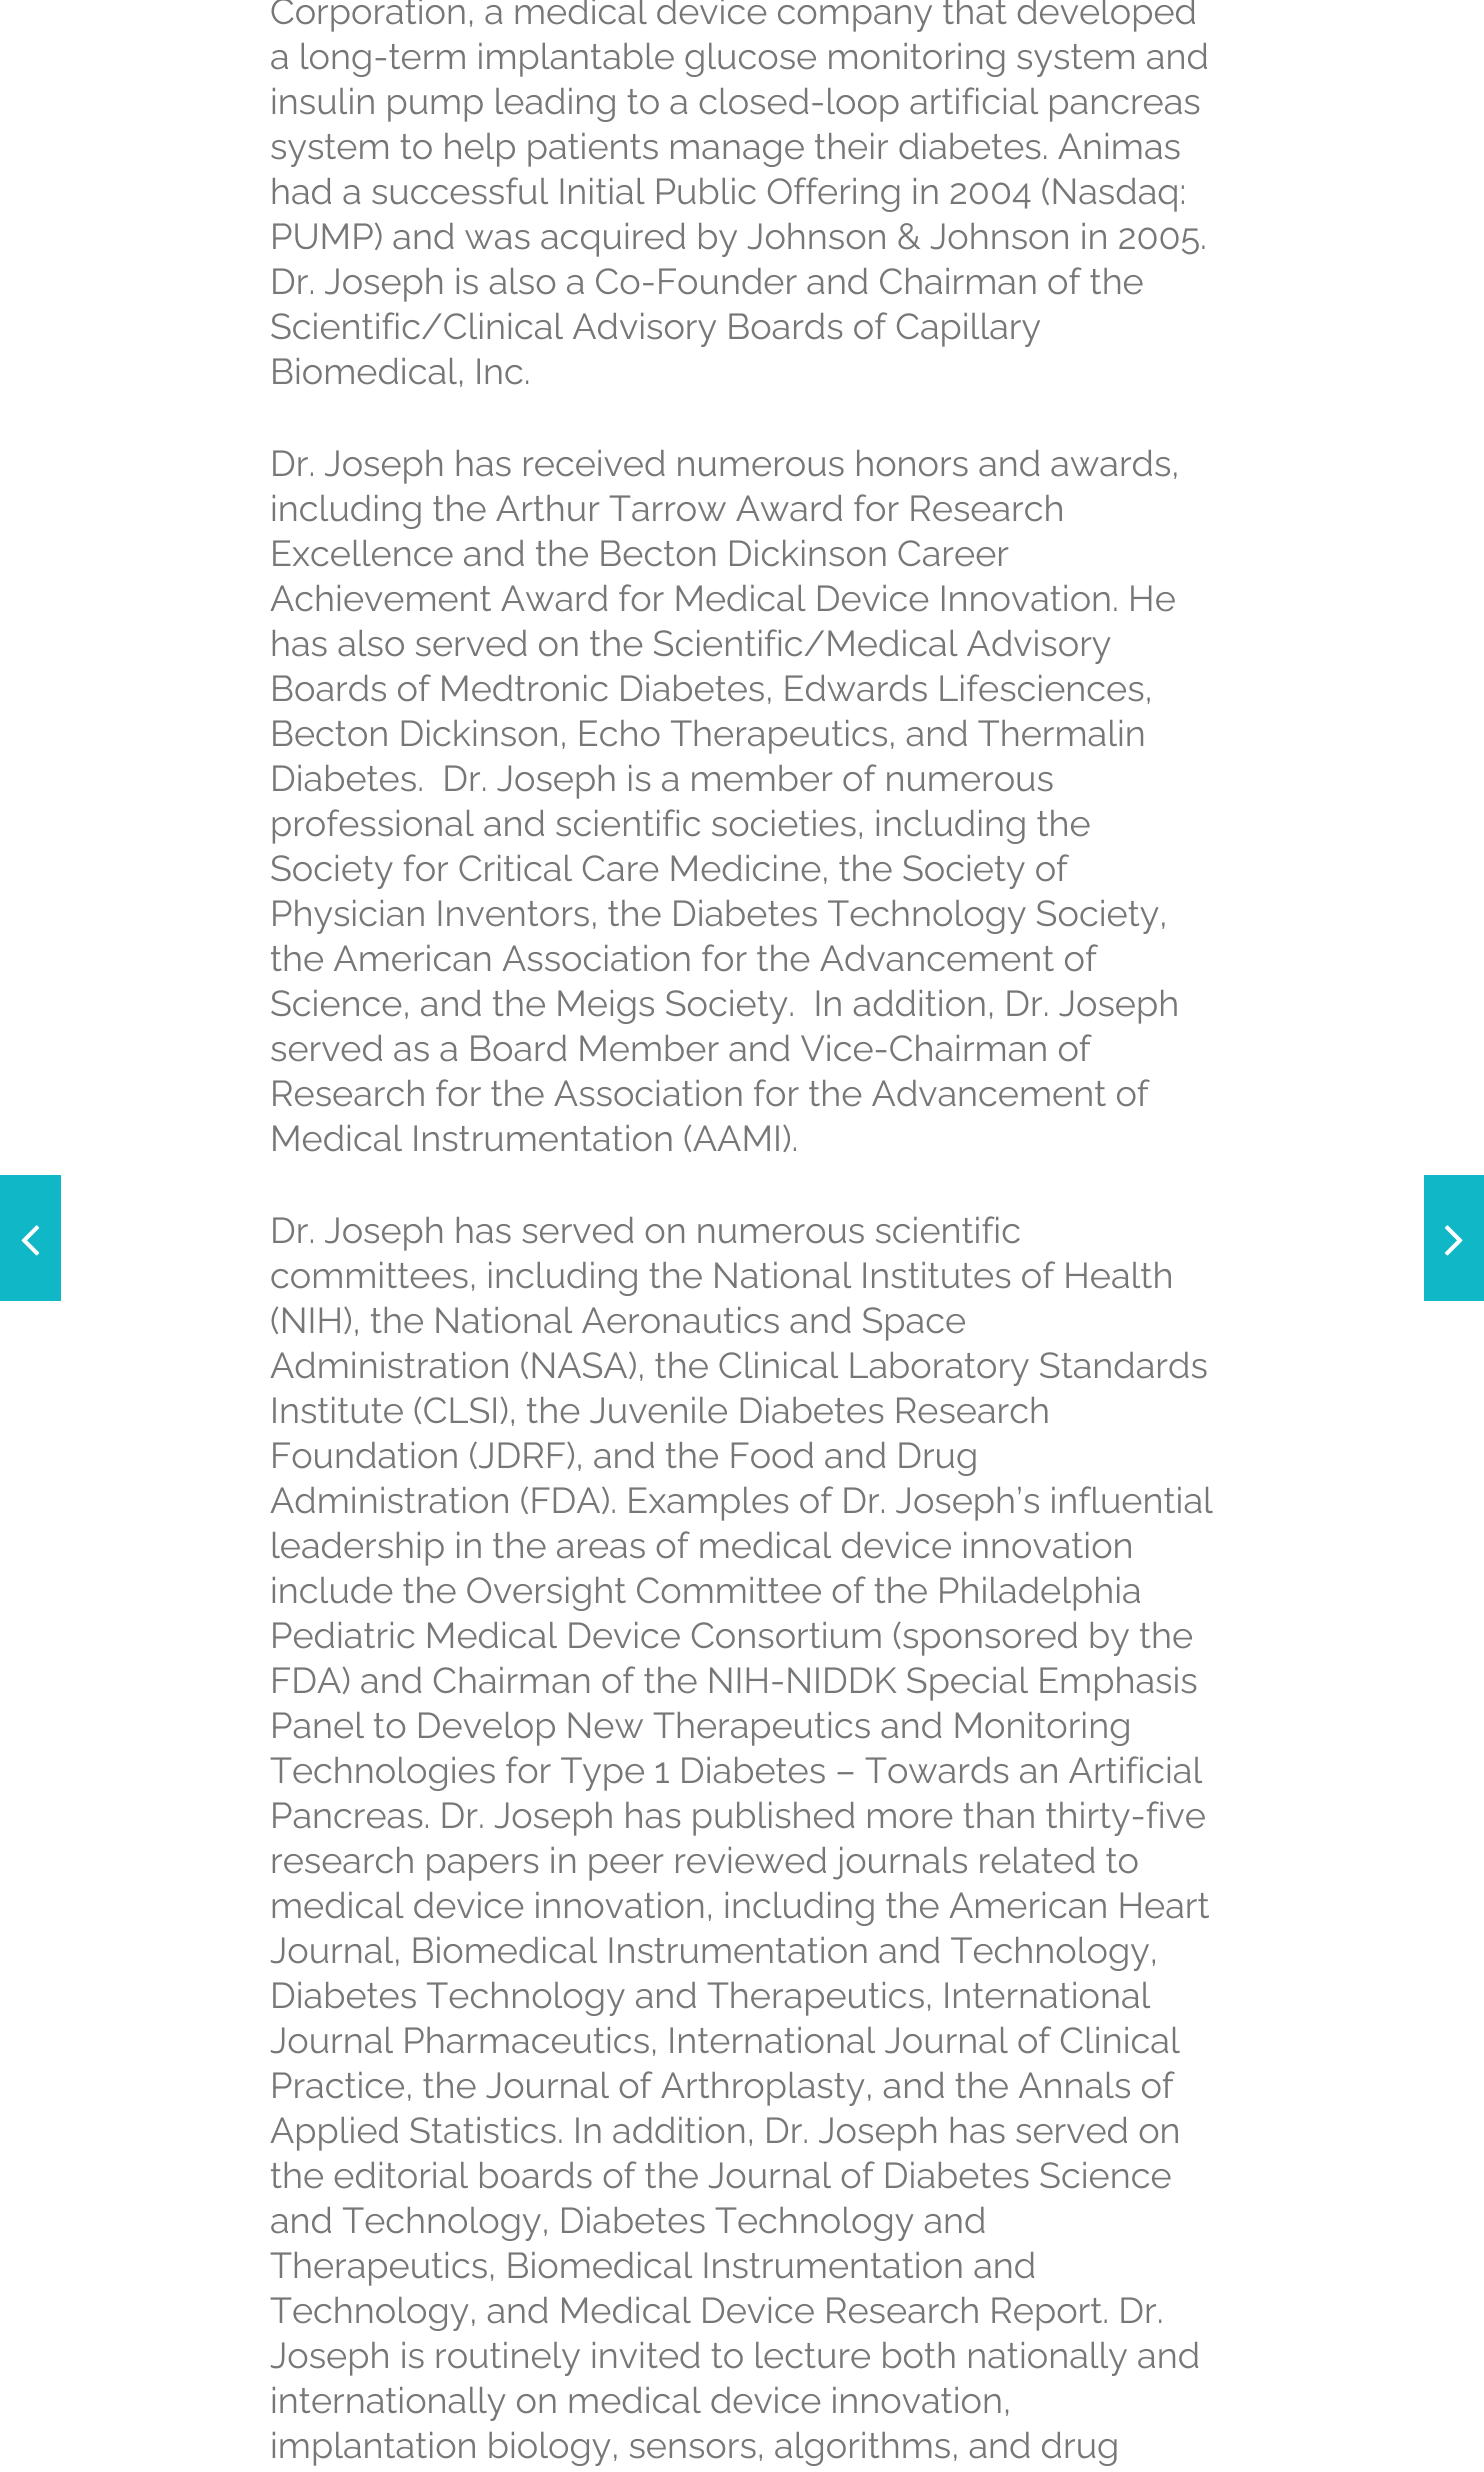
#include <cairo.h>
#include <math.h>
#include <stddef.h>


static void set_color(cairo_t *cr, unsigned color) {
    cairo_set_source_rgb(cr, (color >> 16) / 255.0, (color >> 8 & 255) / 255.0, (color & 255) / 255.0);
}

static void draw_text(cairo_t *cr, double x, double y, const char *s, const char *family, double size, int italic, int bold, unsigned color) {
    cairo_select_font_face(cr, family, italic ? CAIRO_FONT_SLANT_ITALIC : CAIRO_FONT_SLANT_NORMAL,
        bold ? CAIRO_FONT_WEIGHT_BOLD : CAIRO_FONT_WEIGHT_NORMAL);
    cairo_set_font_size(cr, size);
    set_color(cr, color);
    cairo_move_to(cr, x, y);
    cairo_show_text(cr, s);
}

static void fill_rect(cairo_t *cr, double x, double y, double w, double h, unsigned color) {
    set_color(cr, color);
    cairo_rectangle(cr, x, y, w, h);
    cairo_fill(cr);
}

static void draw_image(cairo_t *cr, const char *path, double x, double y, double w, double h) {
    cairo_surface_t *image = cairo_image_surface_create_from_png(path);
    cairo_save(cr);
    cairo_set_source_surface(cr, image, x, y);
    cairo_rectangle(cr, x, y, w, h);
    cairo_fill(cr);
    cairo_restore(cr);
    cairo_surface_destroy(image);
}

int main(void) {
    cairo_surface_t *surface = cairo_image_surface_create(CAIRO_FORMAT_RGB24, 1484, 2472);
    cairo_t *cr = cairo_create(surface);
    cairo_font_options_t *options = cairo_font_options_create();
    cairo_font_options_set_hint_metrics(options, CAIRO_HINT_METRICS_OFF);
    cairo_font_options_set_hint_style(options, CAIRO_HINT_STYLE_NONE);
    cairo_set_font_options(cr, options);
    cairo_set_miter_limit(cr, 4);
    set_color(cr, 0xFFFFFF);
    cairo_paint(cr);
    draw_text(cr, 270, 24, "Corporation, a medical device company that developed", "Raleway", 36, 0, 0, 0x777777);
    draw_text(cr, 270, 69, "a long-term implantable glucose monitoring system and", "Raleway", 36, 0, 0, 0x777777);
    draw_text(cr, 270, 114, "insulin pump leading to a closed-loop artificial pancreas", "Raleway", 36, 0, 0, 0x777777);
    draw_text(cr, 270, 159, "system to help patients manage their diabetes. Animas", "Raleway", 36, 0, 0, 0x777777);
    draw_text(cr, 270, 204, "had a successful Initial Public Offering in 2004 (Nasdaq:", "Raleway", 36, 0, 0, 0x777777);
    draw_text(cr, 270, 249, "PUMP) and was acquired by Johnson & Johnson in 2005.", "Raleway", 36, 0, 0, 0x777777);
    draw_text(cr, 270, 294, "Dr. Joseph is also a Co-Founder and Chairman of the", "Raleway", 36, 0, 0, 0x777777);
    draw_text(cr, 270, 339, "Scientific/Clinical Advisory Boards of Capillary", "Raleway", 36, 0, 0, 0x777777);
    draw_text(cr, 270, 384, "Biomedical, Inc.", "Raleway", 36, 0, 0, 0x777777);
    draw_text(cr, 270, 476, "Dr. Joseph has received numerous honors and awards,", "Raleway", 36, 0, 0, 0x777777);
    draw_text(cr, 270, 521, "including the Arthur Tarrow Award for Research", "Raleway", 36, 0, 0, 0x777777);
    draw_text(cr, 270, 566, "Excellence and the Becton Dickinson Career", "Raleway", 36, 0, 0, 0x777777);
    draw_text(cr, 270, 611, "Achievement Award for Medical Device Innovation. He", "Raleway", 36, 0, 0, 0x777777);
    draw_text(cr, 270, 656, "has also served on the Scientific/Medical Advisory", "Raleway", 36, 0, 0, 0x777777);
    draw_text(cr, 270, 701, "Boards of Medtronic Diabetes, Edwards Lifesciences,", "Raleway", 36, 0, 0, 0x777777);
    draw_text(cr, 270, 746, "Becton Dickinson, Echo Therapeutics, and Thermalin", "Raleway", 36, 0, 0, 0x777777);
    draw_text(cr, 270, 791, "Diabetes.  Dr. Joseph is a member of numerous", "Raleway", 36, 0, 0, 0x777777);
    draw_text(cr, 270, 836, "professional and scientific societies, including the", "Raleway", 36, 0, 0, 0x777777);
    draw_text(cr, 270, 881, "Society for Critical Care Medicine, the Society of", "Raleway", 36, 0, 0, 0x777777);
    draw_text(cr, 270, 926, "Physician Inventors, the Diabetes Technology Society,", "Raleway", 36, 0, 0, 0x777777);
    draw_text(cr, 270, 971, "the American Association for the Advancement of", "Raleway", 36, 0, 0, 0x777777);
    draw_text(cr, 270, 1016, "Science, and the Meigs Society.  In addition, Dr. Joseph", "Raleway", 36, 0, 0, 0x777777);
    draw_text(cr, 270, 1061, "served as a Board Member and Vice-Chairman of", "Raleway", 36, 0, 0, 0x777777);
    draw_text(cr, 270, 1106, "Research for the Association for the Advancement of", "Raleway", 36, 0, 0, 0x777777);
    draw_text(cr, 270, 1151, "Medical Instrumentation (AAMI).", "Raleway", 36, 0, 0, 0x777777);
    draw_text(cr, 270, 1243, "Dr. Joseph has served on numerous scientific", "Raleway", 36, 0, 0, 0x777777);
    draw_text(cr, 270, 1288, "committees, including the National Institutes of Health", "Raleway", 36, 0, 0, 0x777777);
    draw_text(cr, 270, 1333, "(NIH), the National Aeronautics and Space", "Raleway", 36, 0, 0, 0x777777);
    draw_text(cr, 270, 1378, "Administration (NASA), the Clinical Laboratory Standards", "Raleway", 36, 0, 0, 0x777777);
    draw_text(cr, 270, 1423, "Institute (CLSI), the Juvenile Diabetes Research", "Raleway", 36, 0, 0, 0x777777);
    draw_text(cr, 270, 1468, "Foundation (JDRF), and the Food and Drug", "Raleway", 36, 0, 0, 0x777777);
    draw_text(cr, 270, 1513, "Administration (FDA). Examples of Dr. Joseph’s influential", "Raleway", 36, 0, 0, 0x777777);
    draw_text(cr, 270, 1558, "leadership in the areas of medical device innovation", "Raleway", 36, 0, 0, 0x777777);
    draw_text(cr, 270, 1603, "include the Oversight Committee of the Philadelphia", "Raleway", 36, 0, 0, 0x777777);
    draw_text(cr, 270, 1648, "Pediatric Medical Device Consortium (sponsored by the", "Raleway", 36, 0, 0, 0x777777);
    draw_text(cr, 270, 1693, "FDA) and Chairman of the NIH-NIDDK Special Emphasis", "Raleway", 36, 0, 0, 0x777777);
    draw_text(cr, 270, 1738, "Panel to Develop New Therapeutics and Monitoring", "Raleway", 36, 0, 0, 0x777777);
    draw_text(cr, 270, 1783, "Technologies for Type 1 Diabetes – Towards an Artificial", "Raleway", 36, 0, 0, 0x777777);
    draw_text(cr, 270, 1828, "Pancreas. Dr. Joseph has published more than thirty-five", "Raleway", 36, 0, 0, 0x777777);
    draw_text(cr, 270, 1873, "research papers in peer reviewed journals related to", "Raleway", 36, 0, 0, 0x777777);
    draw_text(cr, 270, 1918, "medical device innovation, including the American Heart", "Raleway", 36, 0, 0, 0x777777);
    draw_text(cr, 270, 1963, "Journal, Biomedical Instrumentation and Technology,", "Raleway", 36, 0, 0, 0x777777);
    draw_text(cr, 270, 2008, "Diabetes Technology and Therapeutics, International", "Raleway", 36, 0, 0, 0x777777);
    draw_text(cr, 270, 2053, "Journal Pharmaceutics, International Journal of Clinical", "Raleway", 36, 0, 0, 0x777777);
    draw_text(cr, 270, 2098, "Practice, the Journal of Arthroplasty, and the Annals of", "Raleway", 36, 0, 0, 0x777777);
    draw_text(cr, 270, 2143, "Applied Statistics. In addition, Dr. Joseph has served on", "Raleway", 36, 0, 0, 0x777777);
    draw_text(cr, 270, 2188, "the editorial boards of the Journal of Diabetes Science", "Raleway", 36, 0, 0, 0x777777);
    draw_text(cr, 270, 2233, "and Technology, Diabetes Technology and", "Raleway", 36, 0, 0, 0x777777);
    draw_text(cr, 270, 2278, "Therapeutics, Biomedical Instrumentation and", "Raleway", 36, 0, 0, 0x777777);
    draw_text(cr, 270, 2323, "Technology, and Medical Device Research Report. Dr.", "Raleway", 36, 0, 0, 0x777777);
    draw_text(cr, 270, 2368, "Joseph is routinely invited to lecture both nationally and", "Raleway", 36, 0, 0, 0x777777);
    draw_text(cr, 270, 2413, "internationally on medical device innovation,", "Raleway", 36, 0, 0, 0x777777);
    draw_text(cr, 270, 2458, "implantation biology, sensors, algorithms, and drug", "Raleway", 36, 0, 0, 0x777777);
    fill_rect(cr, 0, 1175, 61, 126, 0x10B8C7);
    draw_image(cr, "assets/img1.png", 21, 1225, 19, 31);
    fill_rect(cr, 1424, 1175, 60, 126, 0x10B8C7);
    draw_image(cr, "assets/img2.png", 1444, 1225, 19, 31);
    cairo_surface_write_to_png(surface, "output.png");
    cairo_font_options_destroy(options);
    cairo_destroy(cr);
    cairo_surface_destroy(surface);
    return 0;
}
